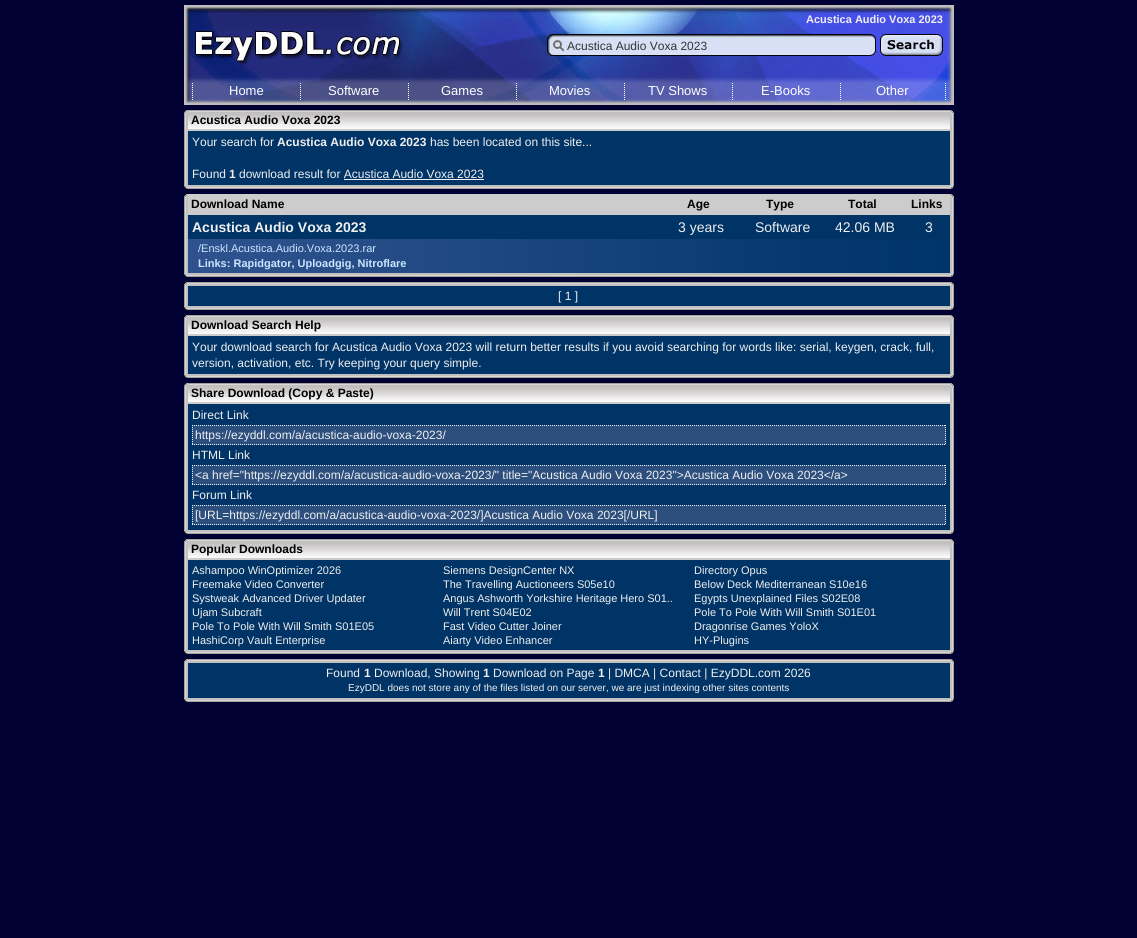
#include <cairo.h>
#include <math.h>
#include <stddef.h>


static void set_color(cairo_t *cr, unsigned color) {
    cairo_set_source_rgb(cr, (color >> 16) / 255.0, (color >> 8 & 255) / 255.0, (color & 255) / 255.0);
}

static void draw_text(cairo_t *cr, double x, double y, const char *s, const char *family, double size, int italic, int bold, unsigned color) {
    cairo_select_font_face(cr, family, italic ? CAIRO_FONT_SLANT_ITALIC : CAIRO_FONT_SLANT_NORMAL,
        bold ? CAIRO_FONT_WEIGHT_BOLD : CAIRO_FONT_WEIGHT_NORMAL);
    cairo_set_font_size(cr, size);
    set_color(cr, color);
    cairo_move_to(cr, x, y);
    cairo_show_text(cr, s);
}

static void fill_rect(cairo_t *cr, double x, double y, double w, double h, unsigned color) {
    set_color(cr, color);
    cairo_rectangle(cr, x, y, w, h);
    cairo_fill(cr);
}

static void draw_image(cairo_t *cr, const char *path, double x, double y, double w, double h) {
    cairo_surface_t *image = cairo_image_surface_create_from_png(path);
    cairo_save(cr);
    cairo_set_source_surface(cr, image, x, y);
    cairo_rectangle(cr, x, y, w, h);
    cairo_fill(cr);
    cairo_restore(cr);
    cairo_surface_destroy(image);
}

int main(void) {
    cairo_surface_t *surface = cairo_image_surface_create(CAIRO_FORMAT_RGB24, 1137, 938);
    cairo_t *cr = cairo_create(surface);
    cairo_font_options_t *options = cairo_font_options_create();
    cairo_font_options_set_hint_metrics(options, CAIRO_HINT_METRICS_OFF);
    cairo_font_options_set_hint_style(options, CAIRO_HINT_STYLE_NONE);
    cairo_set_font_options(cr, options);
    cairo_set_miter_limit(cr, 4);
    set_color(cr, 0x000033);
    cairo_paint(cr);
    draw_image(cr, "assets/img1.png", 184, 5, 770, 100);
    fill_rect(cr, 806, 13, 137, 12, 0x464FE8);
    draw_text(cr, 806, 23, "Acustica Audio Voxa 2023", "Liberation Sans", 11, 0, 1, 0xEFEFEF);
    draw_image(cr, "assets/img2.png", 547, 34, 329, 22);
    draw_text(cr, 567, 50, "Acustica Audio Voxa 2023", "Liberation Sans", 12, 0, 0, 0x333333);
    draw_image(cr, "assets/img3.png", 876, 34, 78, 22);
    cairo_new_path(cr);
    cairo_move_to(cr, 192.5, 83);
    cairo_line_to(cr, 192.5, 100);
    set_color(cr, 0xFFFFFF);
    cairo_set_line_width(cr, 1);
    cairo_set_dash(cr, (double[]){1, 1}, 2, 0);
    cairo_stroke(cr);
    draw_text(cr, 229, 95, "Home", "Liberation Sans", 13, 0, 0, 0xFFFFFF);
    cairo_new_path(cr);
    cairo_move_to(cr, 300.5, 83);
    cairo_line_to(cr, 300.5, 100);
    cairo_stroke(cr);
    draw_text(cr, 328, 95, "Software", "Liberation Sans", 13, 0, 0, 0xFFFFFF);
    cairo_new_path(cr);
    cairo_move_to(cr, 408.5, 83);
    cairo_line_to(cr, 408.5, 100);
    cairo_stroke(cr);
    draw_text(cr, 441, 95, "Games", "Liberation Sans", 13, 0, 0, 0xFFFFFF);
    cairo_new_path(cr);
    cairo_move_to(cr, 516.5, 83);
    cairo_line_to(cr, 516.5, 100);
    cairo_stroke(cr);
    draw_text(cr, 549, 95, "Movies", "Liberation Sans", 13, 0, 0, 0xFFFFFF);
    cairo_new_path(cr);
    cairo_move_to(cr, 624.5, 83);
    cairo_line_to(cr, 624.5, 100);
    cairo_stroke(cr);
    draw_text(cr, 648, 95, "TV Shows", "Liberation Sans", 13, 0, 0, 0xFFFFFF);
    cairo_new_path(cr);
    cairo_move_to(cr, 732.5, 83);
    cairo_line_to(cr, 732.5, 100);
    cairo_stroke(cr);
    draw_text(cr, 761, 95, "E-Books", "Liberation Sans", 13, 0, 0, 0xFFFFFF);
    cairo_new_path(cr);
    cairo_move_to(cr, 945.5, 83);
    cairo_line_to(cr, 945.5, 100);
    cairo_stroke(cr);
    cairo_new_path(cr);
    cairo_move_to(cr, 840.5, 83);
    cairo_line_to(cr, 840.5, 100);
    cairo_stroke(cr);
    draw_text(cr, 876, 95, "Other", "Liberation Sans", 13, 0, 0, 0xFFFFFF);
    draw_image(cr, "assets/img4.png", 184, 110, 4, 21);
    fill_rect(cr, 188, 129, 762, 2, 0xCCCCCC);
    draw_image(cr, "assets/img5.png", 188, 110, 762, 19);
    draw_text(cr, 191, 124, "Acustica Audio Voxa 2023", "Liberation Sans", 12, 0, 1, 0x000000);
    draw_image(cr, "assets/img6.png", 950, 110, 4, 21);
    draw_image(cr, "assets/img7.png", 184, 131, 770, 54);
    draw_text(cr, 192, 146, "Your search for", "Liberation Sans", 12, 0, 0, 0xEFEFEF);
    draw_text(cr, 277, 146, "Acustica Audio Voxa 2023", "Liberation Sans", 12, 0, 1, 0xEFEFEF);
    draw_text(cr, 430, 146, "has been located on this site...", "Liberation Sans", 12, 0, 0, 0xEFEFEF);
    draw_text(cr, 192, 178, "Found", "Liberation Sans", 12, 0, 0, 0xEFEFEF);
    draw_text(cr, 229, 178, "1", "Liberation Sans", 12, 0, 1, 0xEFEFEF);
    draw_text(cr, 239, 178, "download result for Acustica Audio Voxa 2023", "Liberation Sans", 12, 0, 0, 0xEFEFEF);
    fill_rect(cr, 344, 179, 140, 1, 0xEFEFEF);
    draw_image(cr, "assets/img8.png", 184, 185, 770, 4);
    draw_image(cr, "assets/img9.png", 184, 215, 770, 58);
    draw_image(cr, "assets/img4.png", 184, 194, 4, 21);
    fill_rect(cr, 188, 194, 762, 21, 0xCCCCCC);
    draw_text(cr, 191, 208, "Download Name", "Liberation Sans", 12, 0, 1, 0x000000);
    draw_text(cr, 687, 208, "Age", "Liberation Sans", 12, 0, 1, 0x000000);
    draw_text(cr, 766, 208, "Type", "Liberation Sans", 12, 0, 1, 0x000000);
    draw_text(cr, 848, 208, "Total", "Liberation Sans", 12, 0, 1, 0x000000);
    draw_text(cr, 911, 208, "Links", "Liberation Sans", 12, 0, 1, 0x000000);
    fill_rect(cr, 188, 215, 762, 24, 0x003366);
    draw_text(cr, 192, 232, "Acustica Audio Voxa 2023", "Liberation Sans", 14, 0, 1, 0xEFEFEF);
    draw_text(cr, 678, 232, "3 years", "Liberation Sans", 14, 0, 0, 0xEFEFEF);
    draw_text(cr, 755, 232, "Software", "Liberation Sans", 14, 0, 0, 0xEFEFEF);
    draw_text(cr, 835, 232, "42.06 MB", "Liberation Sans", 14, 0, 0, 0xEFEFEF);
    draw_text(cr, 925, 232, "3", "Liberation Sans", 14, 0, 0, 0xEFEFEF);
    draw_text(cr, 198, 252, "/Enskl.Acustica.Audio.Voxa.2023.rar", "Liberation Sans", 11, 0, 0, 0xCCE6FF);
    draw_text(cr, 198, 267, "Links: Rapidgator, Uploadgig, Nitroflare", "Liberation Sans", 11, 0, 1, 0xCCE6FF);
    draw_image(cr, "assets/img6.png", 950, 194, 4, 21);
    draw_image(cr, "assets/img8.png", 184, 273, 770, 4);
    draw_image(cr, "assets/img10.png", 184, 282, 770, 4);
    draw_image(cr, "assets/img11.png", 184, 286, 770, 20);
    draw_text(cr, 558, 300, "[ 1 ]", "Liberation Sans", 12, 0, 0, 0xEFEFEF);
    draw_image(cr, "assets/img8.png", 184, 306, 770, 4);
    draw_image(cr, "assets/img4.png", 184, 315, 4, 21);
    fill_rect(cr, 188, 334, 762, 2, 0xCCCCCC);
    draw_image(cr, "assets/img5.png", 188, 315, 762, 19);
    draw_text(cr, 191, 329, "Download Search Help", "Liberation Sans", 12, 0, 1, 0x000000);
    draw_image(cr, "assets/img6.png", 950, 315, 4, 21);
    draw_image(cr, "assets/img12.png", 184, 336, 770, 38);
    draw_text(cr, 192, 351, "Your download search for Acustica Audio Voxa 2023 will return better results if you avoid searching for words like: serial, keygen, crack, full,", "Liberation Sans", 12, 0, 0, 0xEFEFEF);
    draw_text(cr, 192, 367, "version, activation, etc. Try keeping your query simple.", "Liberation Sans", 12, 0, 0, 0xEFEFEF);
    draw_image(cr, "assets/img8.png", 184, 374, 770, 4);
    draw_image(cr, "assets/img4.png", 184, 383, 4, 21);
    fill_rect(cr, 188, 402, 762, 2, 0xCCCCCC);
    draw_image(cr, "assets/img5.png", 188, 383, 762, 19);
    draw_text(cr, 191, 397, "Share Download (Copy & Paste)", "Liberation Sans", 12, 0, 1, 0x000000);
    draw_image(cr, "assets/img6.png", 950, 383, 4, 21);
    draw_image(cr, "assets/img13.png", 184, 404, 770, 126);
    draw_text(cr, 192, 419, "Direct Link", "Liberation Sans", 12, 0, 0, 0xEFEFEF);
    fill_rect(cr, 192, 425, 754, 20, 0x2C4F7E);
    cairo_new_path(cr);
    cairo_move_to(cr, 192, 425.5);
    cairo_line_to(cr, 946, 425.5);
    set_color(cr, 0xE8F3FF);
    cairo_stroke(cr);
    cairo_new_path(cr);
    cairo_move_to(cr, 945.5, 425);
    cairo_line_to(cr, 945.5, 445);
    cairo_stroke(cr);
    cairo_new_path(cr);
    cairo_move_to(cr, 192, 444.5);
    cairo_line_to(cr, 946, 444.5);
    cairo_stroke(cr);
    cairo_new_path(cr);
    cairo_move_to(cr, 192.5, 425);
    cairo_line_to(cr, 192.5, 445);
    cairo_stroke(cr);
    draw_text(cr, 195, 439, "https://ezyddl.com/a/acustica-audio-voxa-2023/", "Liberation Sans", 12, 0, 0, 0xEFEFEF);
    draw_text(cr, 192, 459, "HTML Link", "Liberation Sans", 12, 0, 0, 0xEFEFEF);
    fill_rect(cr, 192, 465, 754, 20, 0x2C4F7E);
    cairo_new_path(cr);
    cairo_move_to(cr, 192, 465.5);
    cairo_line_to(cr, 946, 465.5);
    set_color(cr, 0xE8F3FF);
    cairo_stroke(cr);
    cairo_new_path(cr);
    cairo_move_to(cr, 945.5, 465);
    cairo_line_to(cr, 945.5, 485);
    cairo_stroke(cr);
    cairo_new_path(cr);
    cairo_move_to(cr, 192, 484.5);
    cairo_line_to(cr, 946, 484.5);
    cairo_stroke(cr);
    cairo_new_path(cr);
    cairo_move_to(cr, 192.5, 465);
    cairo_line_to(cr, 192.5, 485);
    cairo_stroke(cr);
    draw_text(cr, 195, 479, "<a href=\"https://ezyddl.com/a/acustica-audio-voxa-2023/\" title=\"Acustica Audio Voxa 2023\">Acustica Audio Voxa 2023</a>", "Liberation Sans", 12, 0, 0, 0xEFEFEF);
    draw_text(cr, 192, 499, "Forum Link", "Liberation Sans", 12, 0, 0, 0xEFEFEF);
    fill_rect(cr, 192, 505, 754, 20, 0x2C4F7E);
    cairo_new_path(cr);
    cairo_move_to(cr, 192, 505.5);
    cairo_line_to(cr, 946, 505.5);
    set_color(cr, 0xE8F3FF);
    cairo_stroke(cr);
    cairo_new_path(cr);
    cairo_move_to(cr, 945.5, 505);
    cairo_line_to(cr, 945.5, 525);
    cairo_stroke(cr);
    cairo_new_path(cr);
    cairo_move_to(cr, 192, 524.5);
    cairo_line_to(cr, 946, 524.5);
    cairo_stroke(cr);
    cairo_new_path(cr);
    cairo_move_to(cr, 192.5, 505);
    cairo_line_to(cr, 192.5, 525);
    cairo_stroke(cr);
    draw_text(cr, 195, 519, "[URL=https://ezyddl.com/a/acustica-audio-voxa-2023/]Acustica Audio Voxa 2023[/URL]", "Liberation Sans", 12, 0, 0, 0xEFEFEF);
    draw_image(cr, "assets/img8.png", 184, 530, 770, 4);
    draw_image(cr, "assets/img4.png", 184, 539, 4, 21);
    fill_rect(cr, 188, 558, 762, 2, 0xCCCCCC);
    draw_image(cr, "assets/img5.png", 188, 539, 762, 19);
    draw_text(cr, 191, 553, "Popular Downloads", "Liberation Sans", 12, 0, 1, 0x000000);
    draw_image(cr, "assets/img6.png", 950, 539, 4, 21);
    draw_image(cr, "assets/img14.png", 184, 560, 770, 90);
    draw_text(cr, 192, 574, "Ashampoo WinOptimizer 2026", "Liberation Sans", 11, 0, 0, 0xEFEFEF);
    draw_text(cr, 443, 574, "Siemens DesignCenter NX", "Liberation Sans", 11, 0, 0, 0xEFEFEF);
    draw_text(cr, 694, 574, "Directory Opus", "Liberation Sans", 11, 0, 0, 0xEFEFEF);
    draw_text(cr, 192, 588, "Freemake Video Converter", "Liberation Sans", 11, 0, 0, 0xEFEFEF);
    draw_text(cr, 443, 588, "The Travelling Auctioneers S05e10", "Liberation Sans", 11, 0, 0, 0xEFEFEF);
    draw_text(cr, 694, 588, "Below Deck Mediterranean S10e16", "Liberation Sans", 11, 0, 0, 0xEFEFEF);
    draw_text(cr, 192, 602, "Systweak Advanced Driver Updater", "Liberation Sans", 11, 0, 0, 0xEFEFEF);
    draw_text(cr, 443, 602, "Angus Ashworth Yorkshire Heritage Hero S01..", "Liberation Sans", 11, 0, 0, 0xEFEFEF);
    draw_text(cr, 694, 602, "Egypts Unexplained Files S02E08", "Liberation Sans", 11, 0, 0, 0xEFEFEF);
    draw_text(cr, 192, 616, "Ujam Subcraft", "Liberation Sans", 11, 0, 0, 0xEFEFEF);
    draw_text(cr, 443, 616, "Will Trent S04E02", "Liberation Sans", 11, 0, 0, 0xEFEFEF);
    draw_text(cr, 694, 616, "Pole To Pole With Will Smith S01E01", "Liberation Sans", 11, 0, 0, 0xEFEFEF);
    draw_text(cr, 192, 630, "Pole To Pole With Will Smith S01E05", "Liberation Sans", 11, 0, 0, 0xEFEFEF);
    draw_text(cr, 443, 630, "Fast Video Cutter Joiner", "Liberation Sans", 11, 0, 0, 0xEFEFEF);
    draw_text(cr, 694, 630, "Dragonrise Games YoloX", "Liberation Sans", 11, 0, 0, 0xEFEFEF);
    draw_text(cr, 192, 644, "HashiCorp Vault Enterprise", "Liberation Sans", 11, 0, 0, 0xEFEFEF);
    draw_text(cr, 443, 644, "Aiarty Video Enhancer", "Liberation Sans", 11, 0, 0, 0xEFEFEF);
    draw_text(cr, 694, 644, "HY-Plugins", "Liberation Sans", 11, 0, 0, 0xEFEFEF);
    draw_image(cr, "assets/img8.png", 184, 650, 770, 4);
    draw_image(cr, "assets/img10.png", 184, 659, 770, 4);
    draw_image(cr, "assets/img15.png", 184, 663, 770, 35);
    draw_text(cr, 326, 677, "Found", "Liberation Sans", 12, 0, 0, 0xEFEFEF);
    draw_text(cr, 364, 677, "1", "Liberation Sans", 12, 0, 1, 0xEFEFEF);
    draw_text(cr, 374, 677, "Download, Showing", "Liberation Sans", 12, 0, 0, 0xEFEFEF);
    draw_text(cr, 483, 677, "1", "Liberation Sans", 12, 0, 1, 0xEFEFEF);
    draw_text(cr, 493, 677, "Download on Page", "Liberation Sans", 12, 0, 0, 0xEFEFEF);
    draw_text(cr, 598, 677, "1", "Liberation Sans", 12, 0, 1, 0xEFEFEF);
    draw_text(cr, 608, 677, "| DMCA | Contact | EzyDDL.com 2026", "Liberation Sans", 12, 0, 0, 0xEFEFEF);
    draw_text(cr, 348, 691, "EzyDDL does not store any of the files listed on our server, we are just indexing other sites contents", "Liberation Sans", 10, 0, 0, 0xEFEFEF);
    draw_image(cr, "assets/img8.png", 184, 698, 770, 4);
    cairo_surface_write_to_png(surface, "output.png");
    cairo_font_options_destroy(options);
    cairo_destroy(cr);
    cairo_surface_destroy(surface);
    return 0;
}
